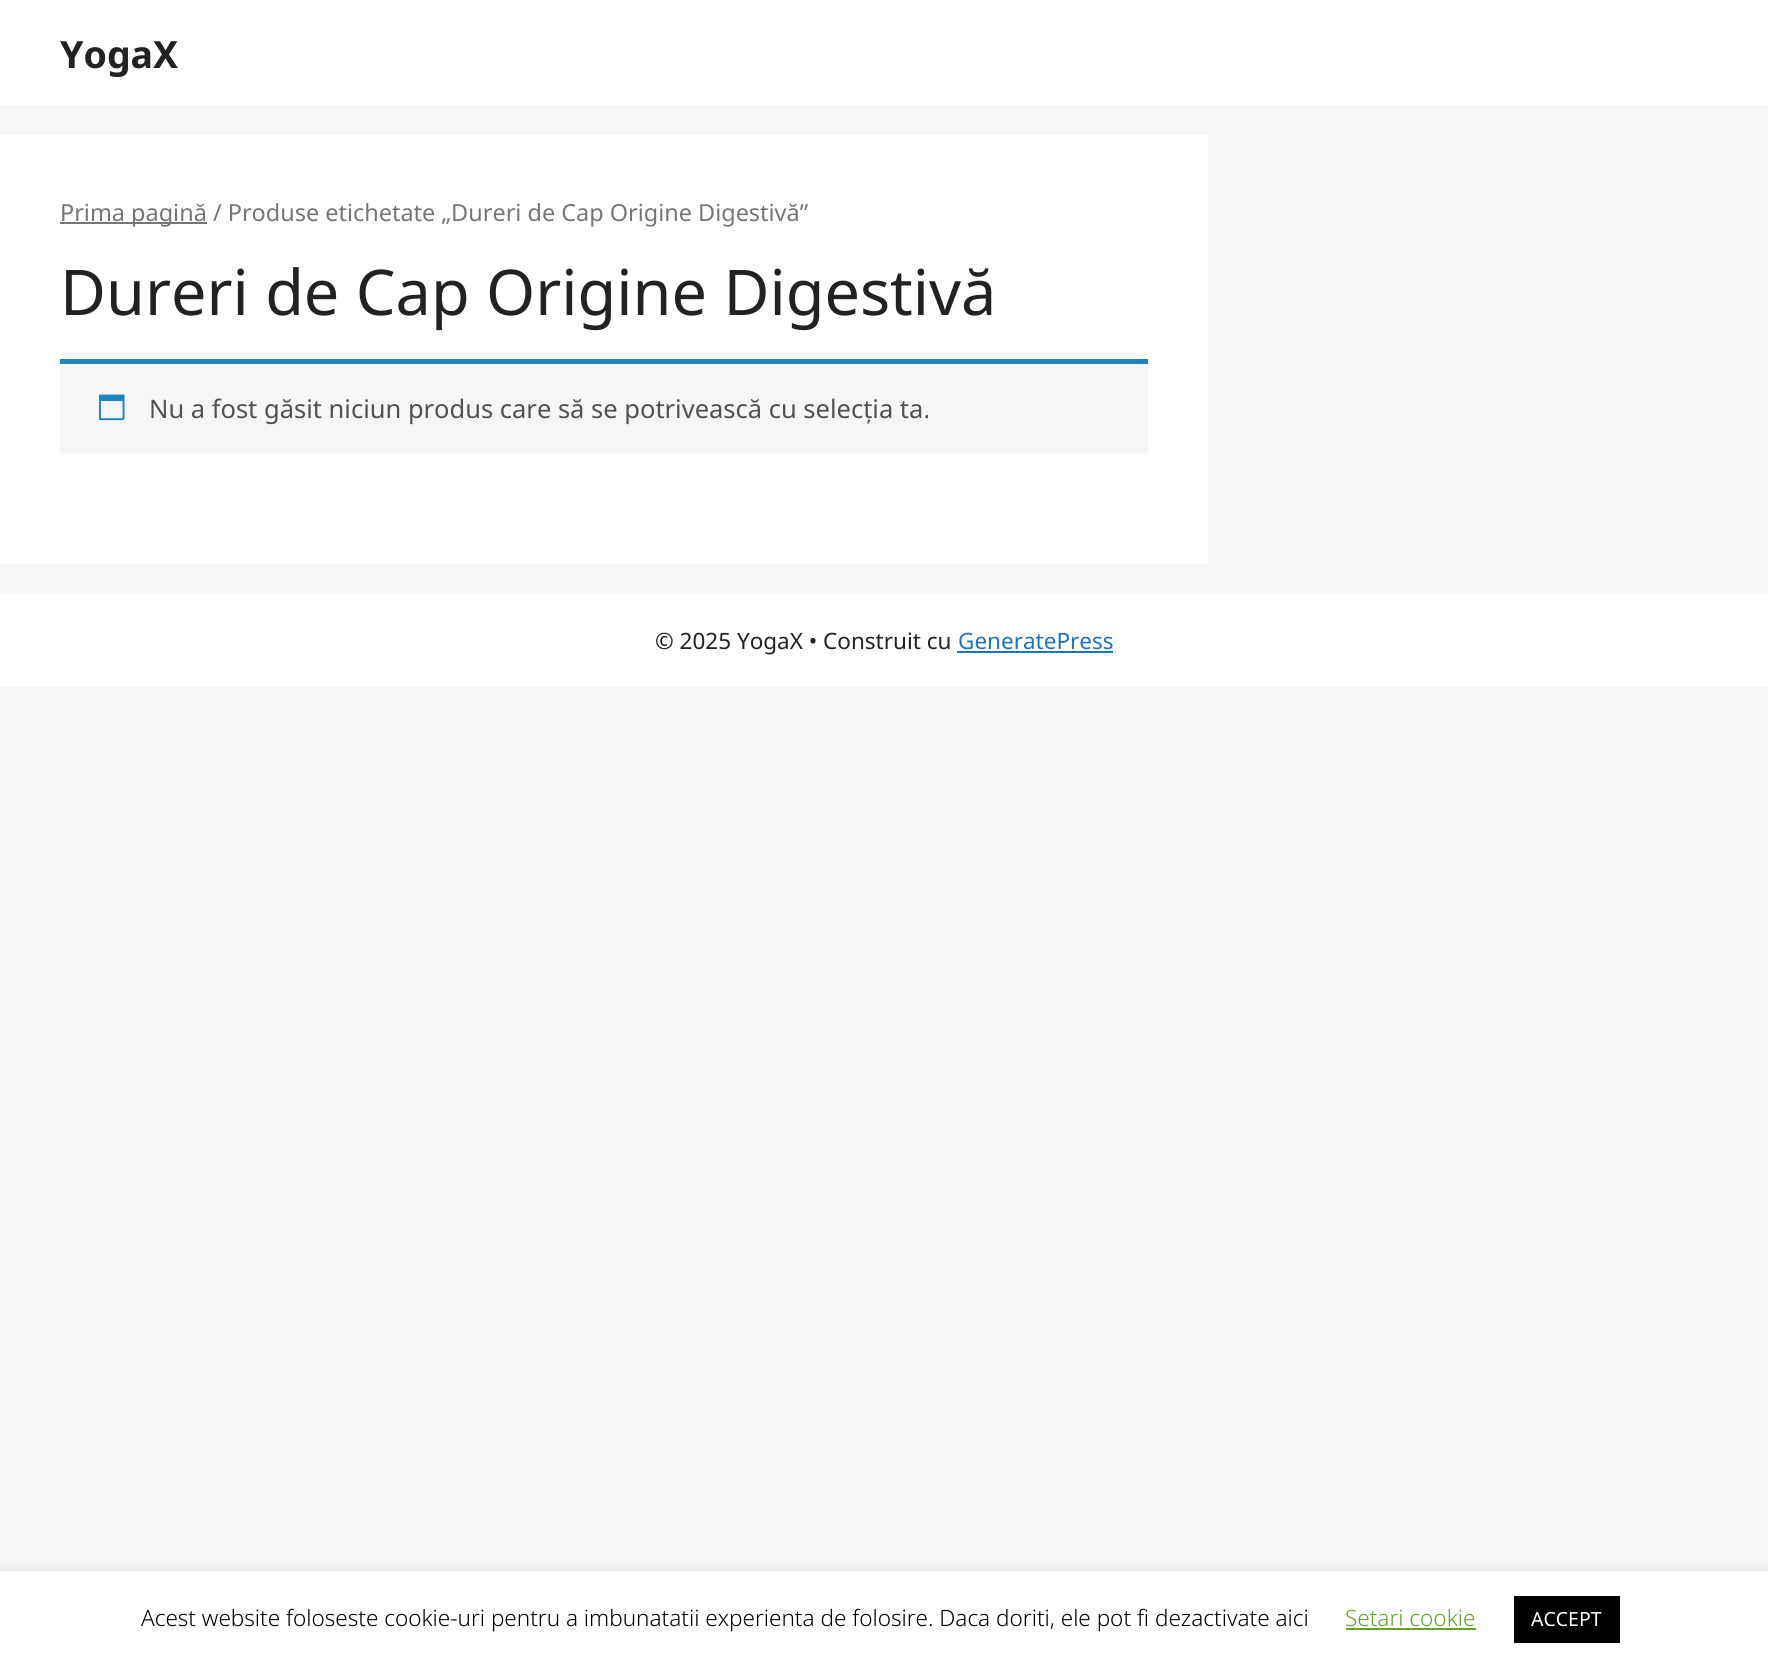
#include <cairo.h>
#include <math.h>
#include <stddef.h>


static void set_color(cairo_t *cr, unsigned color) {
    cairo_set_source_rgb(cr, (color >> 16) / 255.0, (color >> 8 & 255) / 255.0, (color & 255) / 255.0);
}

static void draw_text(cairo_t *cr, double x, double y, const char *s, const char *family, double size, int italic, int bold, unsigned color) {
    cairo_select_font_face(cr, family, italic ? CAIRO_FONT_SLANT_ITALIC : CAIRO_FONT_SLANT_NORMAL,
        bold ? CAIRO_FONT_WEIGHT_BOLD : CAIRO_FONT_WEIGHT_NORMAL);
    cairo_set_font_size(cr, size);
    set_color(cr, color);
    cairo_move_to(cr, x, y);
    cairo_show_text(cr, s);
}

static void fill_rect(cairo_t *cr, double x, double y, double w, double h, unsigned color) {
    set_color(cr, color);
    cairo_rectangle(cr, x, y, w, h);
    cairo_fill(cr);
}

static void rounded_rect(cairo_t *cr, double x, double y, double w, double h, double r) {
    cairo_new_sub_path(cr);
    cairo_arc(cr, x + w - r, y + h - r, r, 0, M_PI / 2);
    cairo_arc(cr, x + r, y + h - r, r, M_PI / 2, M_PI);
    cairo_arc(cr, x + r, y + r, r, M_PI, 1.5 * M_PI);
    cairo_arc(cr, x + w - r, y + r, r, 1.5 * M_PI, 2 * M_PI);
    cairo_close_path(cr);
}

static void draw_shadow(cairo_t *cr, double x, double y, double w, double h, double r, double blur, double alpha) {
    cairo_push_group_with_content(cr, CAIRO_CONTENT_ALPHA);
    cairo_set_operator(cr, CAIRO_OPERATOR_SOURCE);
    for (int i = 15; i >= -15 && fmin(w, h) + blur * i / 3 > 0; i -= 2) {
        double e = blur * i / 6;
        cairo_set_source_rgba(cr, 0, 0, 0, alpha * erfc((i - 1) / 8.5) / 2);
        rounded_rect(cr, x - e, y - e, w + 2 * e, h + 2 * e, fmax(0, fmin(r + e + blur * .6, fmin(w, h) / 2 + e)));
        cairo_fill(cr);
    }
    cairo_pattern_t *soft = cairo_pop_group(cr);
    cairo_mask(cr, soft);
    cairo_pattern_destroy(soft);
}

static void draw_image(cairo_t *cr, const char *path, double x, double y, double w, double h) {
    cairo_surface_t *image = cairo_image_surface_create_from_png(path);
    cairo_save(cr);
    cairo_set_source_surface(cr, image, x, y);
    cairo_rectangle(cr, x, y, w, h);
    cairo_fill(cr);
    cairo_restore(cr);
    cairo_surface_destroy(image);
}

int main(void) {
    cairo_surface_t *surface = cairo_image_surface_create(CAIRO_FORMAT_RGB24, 1768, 1667);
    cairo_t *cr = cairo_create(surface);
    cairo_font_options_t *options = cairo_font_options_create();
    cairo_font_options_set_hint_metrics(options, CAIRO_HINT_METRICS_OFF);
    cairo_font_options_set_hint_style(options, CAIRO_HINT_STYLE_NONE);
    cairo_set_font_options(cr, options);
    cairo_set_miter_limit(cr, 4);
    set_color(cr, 0xF7F8F9);
    cairo_paint(cr);
    fill_rect(cr, 0, 0, 1768, 105, 0xFFFFFF);
    draw_text(cr, 60, 68, "YogaX", "Noto Sans", 37.5, 0, 1, 0x222222);
    fill_rect(cr, 0, 135, 1208, 429, 0xFFFFFF);
    fill_rect(cr, 60, 222, 147, 2, 0x767676);
    draw_text(cr, 60, 221, "Prima pagină / Produse etichetate „Dureri de Cap Origine Digestivă”", "Noto Sans", 23.45, 0, 0, 0x767676);
    draw_text(cr, 60, 315, "Dureri de Cap Origine Digestivă", "Noto Sans", 63, 0, 0, 0x222222);
    fill_rect(cr, 60, 364, 1088, 89, 0xF6F5F8);
    fill_rect(cr, 60, 359, 1088, 5, 0x1E85BE);
    draw_image(cr, "assets/img1.png", 99, 394, 26, 27);
    draw_text(cr, 149, 418, "Nu a fost găsit niciun produs care să se potrivească cu selecția ta.", "Noto Sans", 25.5, 0, 0, 0x515151);
    fill_rect(cr, 0, 594, 1768, 93, 0xFFFFFF);
    draw_text(cr, 655, 649, "© 2025 YogaX • Construit cu", "Noto Sans", 22.5, 0, 0, 0x222222);
    draw_text(cr, 958, 649, "GeneratePress", "Noto Sans", 22.5, 0, 0, 0x1E73BE);
    fill_rect(cr, 957, 651, 156, 2, 0x1E73BE);
    set_color(cr, 0xACABAB);
    draw_shadow(cr, 0, 1569, 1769, 98, 0, 7.5, 0.3);
    fill_rect(cr, 0, 1571, 1768, 96, 0xFFFFFF);
    draw_text(cr, 141, 1626, "Acest website foloseste cookie-uri pentru a imbunatatii experienta de folosire. Daca doriti, ele pot fi dezactivate aici", "Noto Sans Light", 22.5, 0, 0, 0x000000);
    draw_text(cr, 1345, 1626, "Setari cookie", "Noto Sans Light", 22.5, 0, 0, 0x62A329);
    fill_rect(cr, 1346, 1628, 130, 2, 0x62A329);
    fill_rect(cr, 1514, 1596, 106, 47, 0x000000);
    draw_text(cr, 1531, 1626, "ACCEPT", "Noto Sans", 19.5, 0, 0, 0xFFFFFF);
    cairo_surface_write_to_png(surface, "output.png");
    cairo_font_options_destroy(options);
    cairo_destroy(cr);
    cairo_surface_destroy(surface);
    return 0;
}
